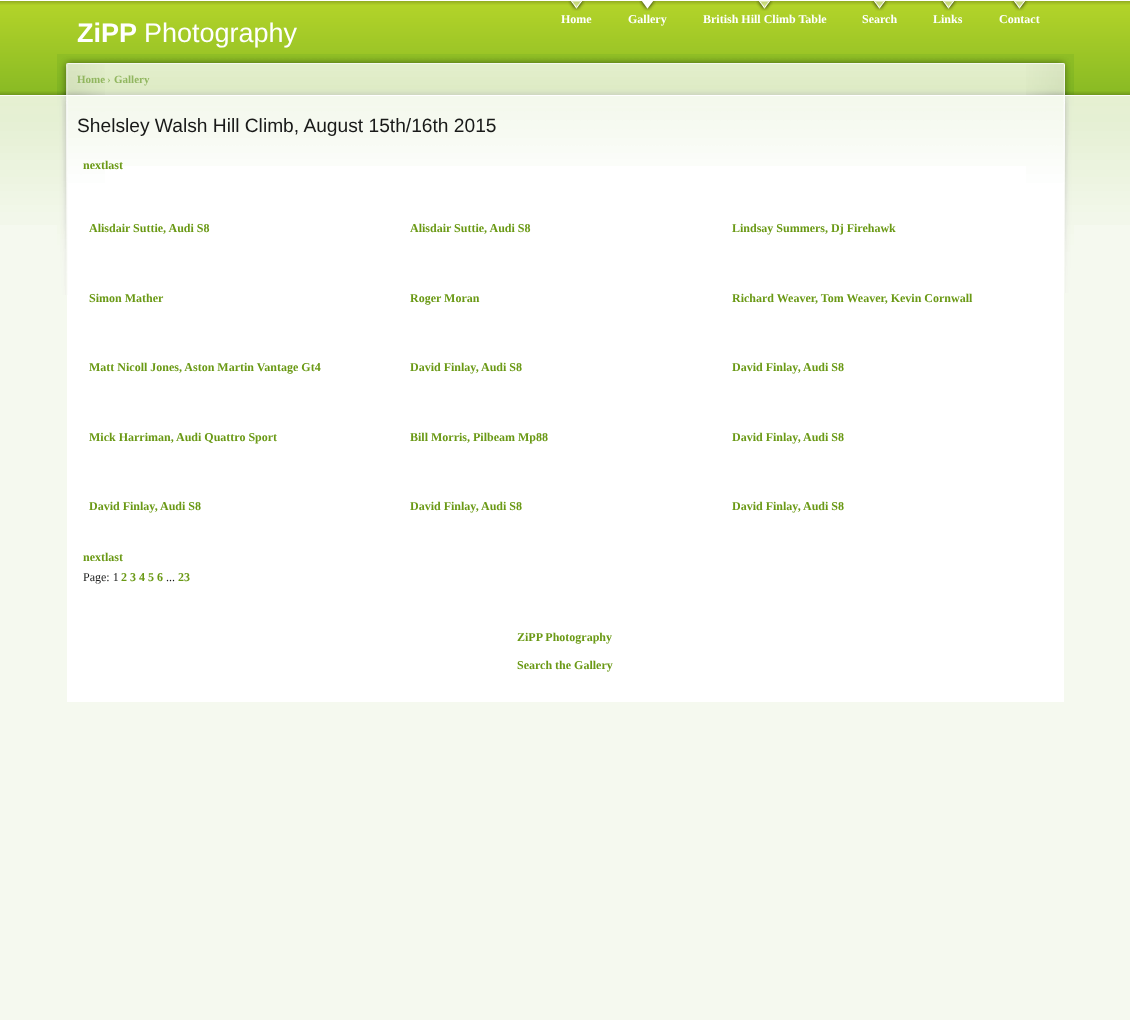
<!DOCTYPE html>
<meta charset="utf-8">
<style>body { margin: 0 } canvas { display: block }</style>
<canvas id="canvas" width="1130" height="1020"></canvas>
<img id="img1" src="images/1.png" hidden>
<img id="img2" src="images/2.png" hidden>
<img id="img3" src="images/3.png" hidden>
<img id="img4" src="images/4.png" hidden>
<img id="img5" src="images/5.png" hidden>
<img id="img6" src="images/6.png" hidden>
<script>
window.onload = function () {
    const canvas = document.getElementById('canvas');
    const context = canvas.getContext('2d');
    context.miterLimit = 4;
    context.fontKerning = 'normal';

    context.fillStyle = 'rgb(245, 249, 239)';
    context.fillRect(0, 0, 1130, 1020);
    context.drawImage(document.getElementById('img1'), 0, 0, 1130, 225);
    context.drawImage(document.getElementById('img2'), 568, 1, 17, 10);
    context.drawImage(document.getElementById('img3'), 639, 1, 17, 10);
    context.drawImage(document.getElementById('img2'), 756, 1, 17, 10);
    context.drawImage(document.getElementById('img2'), 871, 1, 17, 10);
    context.drawImage(document.getElementById('img2'), 940, 1, 17, 10);
    context.drawImage(document.getElementById('img2'), 1011, 1, 17, 10);
    context.fillStyle = 'rgb(255, 255, 255)';
    context.fillRect(67, 166, 997, 536);
    context.drawImage(document.getElementById('img4'), 105, 54, 921, 112);
    context.drawImage(document.getElementById('img5'), 1026, 54, 48, 239);
    context.drawImage(document.getElementById('img6'), 57, 54, 48, 241);
    context.font = 'bold 12px Liberation Serif';
    context.fillText('Home', 561, 23);
    context.fillText('Gallery', 628, 23);
    context.fillText('British Hill Climb Table', 703, 23);
    context.fillText('Search', 862, 23);
    context.fillText('Links', 933, 23);
    context.fillText('Contact', 999, 23);
    context.font = 'bold 27px Liberation Sans';
    context.fillText('ZiPP', 77, 42);
    context.font = '27px Liberation Sans';
    context.fillText('Photography', 144, 42);
    context.font = 'bold 11px Liberation Serif';
    context.fillStyle = 'rgb(145, 182, 95)';
    context.fillText('Home', 77, 83);
    context.font = '11px Liberation Serif';
    context.fillText('›', 107, 83);
    context.font = 'bold 11px Liberation Serif';
    context.fillText('Gallery', 114, 83);
    context.font = '19.2px Liberation Sans';
    context.fillStyle = 'rgb(25, 26, 25)';
    context.fillText('Shelsley Walsh Hill Climb, August 15th/16th 2015', 77, 132);
    context.font = 'bold 12px Liberation Serif';
    context.fillStyle = 'rgb(106, 153, 21)';
    context.fillText('nextlast', 83, 169);
    context.fillText('Alisdair Suttie, Audi S8', 89, 232);
    context.fillText('Alisdair Suttie, Audi S8', 410, 232);
    context.fillText('Lindsay Summers, Dj Firehawk', 732, 232);
    context.fillText('Simon Mather', 89, 302);
    context.fillText('Roger Moran', 410, 302);
    context.fillText('Richard Weaver, Tom Weaver, Kevin Cornwall', 732, 302);
    context.fillText('Matt Nicoll Jones, Aston Martin Vantage Gt4', 89, 371);
    context.fillText('David Finlay, Audi S8', 410, 371);
    context.fillText('David Finlay, Audi S8', 732, 371);
    context.fillText('Mick Harriman, Audi Quattro Sport', 89, 441);
    context.fillText('Bill Morris, Pilbeam Mp88', 410, 441);
    context.fillText('David Finlay, Audi S8', 732, 441);
    context.fillText('David Finlay, Audi S8', 89, 510);
    context.fillText('David Finlay, Audi S8', 410, 510);
    context.fillText('David Finlay, Audi S8', 732, 510);
    context.fillText('nextlast', 83, 561);
    context.font = '12px Liberation Serif';
    context.fillStyle = 'rgb(25, 26, 25)';
    context.fillText('Page: 1', 83, 581);
    context.font = 'bold 12px Liberation Serif';
    context.fillStyle = 'rgb(106, 153, 21)';
    context.fillText('2 3 4 5 6', 121, 581);
    context.font = '12px Liberation Serif';
    context.fillStyle = 'rgb(25, 26, 25)';
    context.fillText('...', 166, 581);
    context.font = 'bold 12px Liberation Serif';
    context.fillStyle = 'rgb(106, 153, 21)';
    context.fillText('23', 178, 581);
    context.fillText('ZiPP Photography', 517, 641);
    context.fillText('Search the Gallery', 517, 669);
};
</script>
